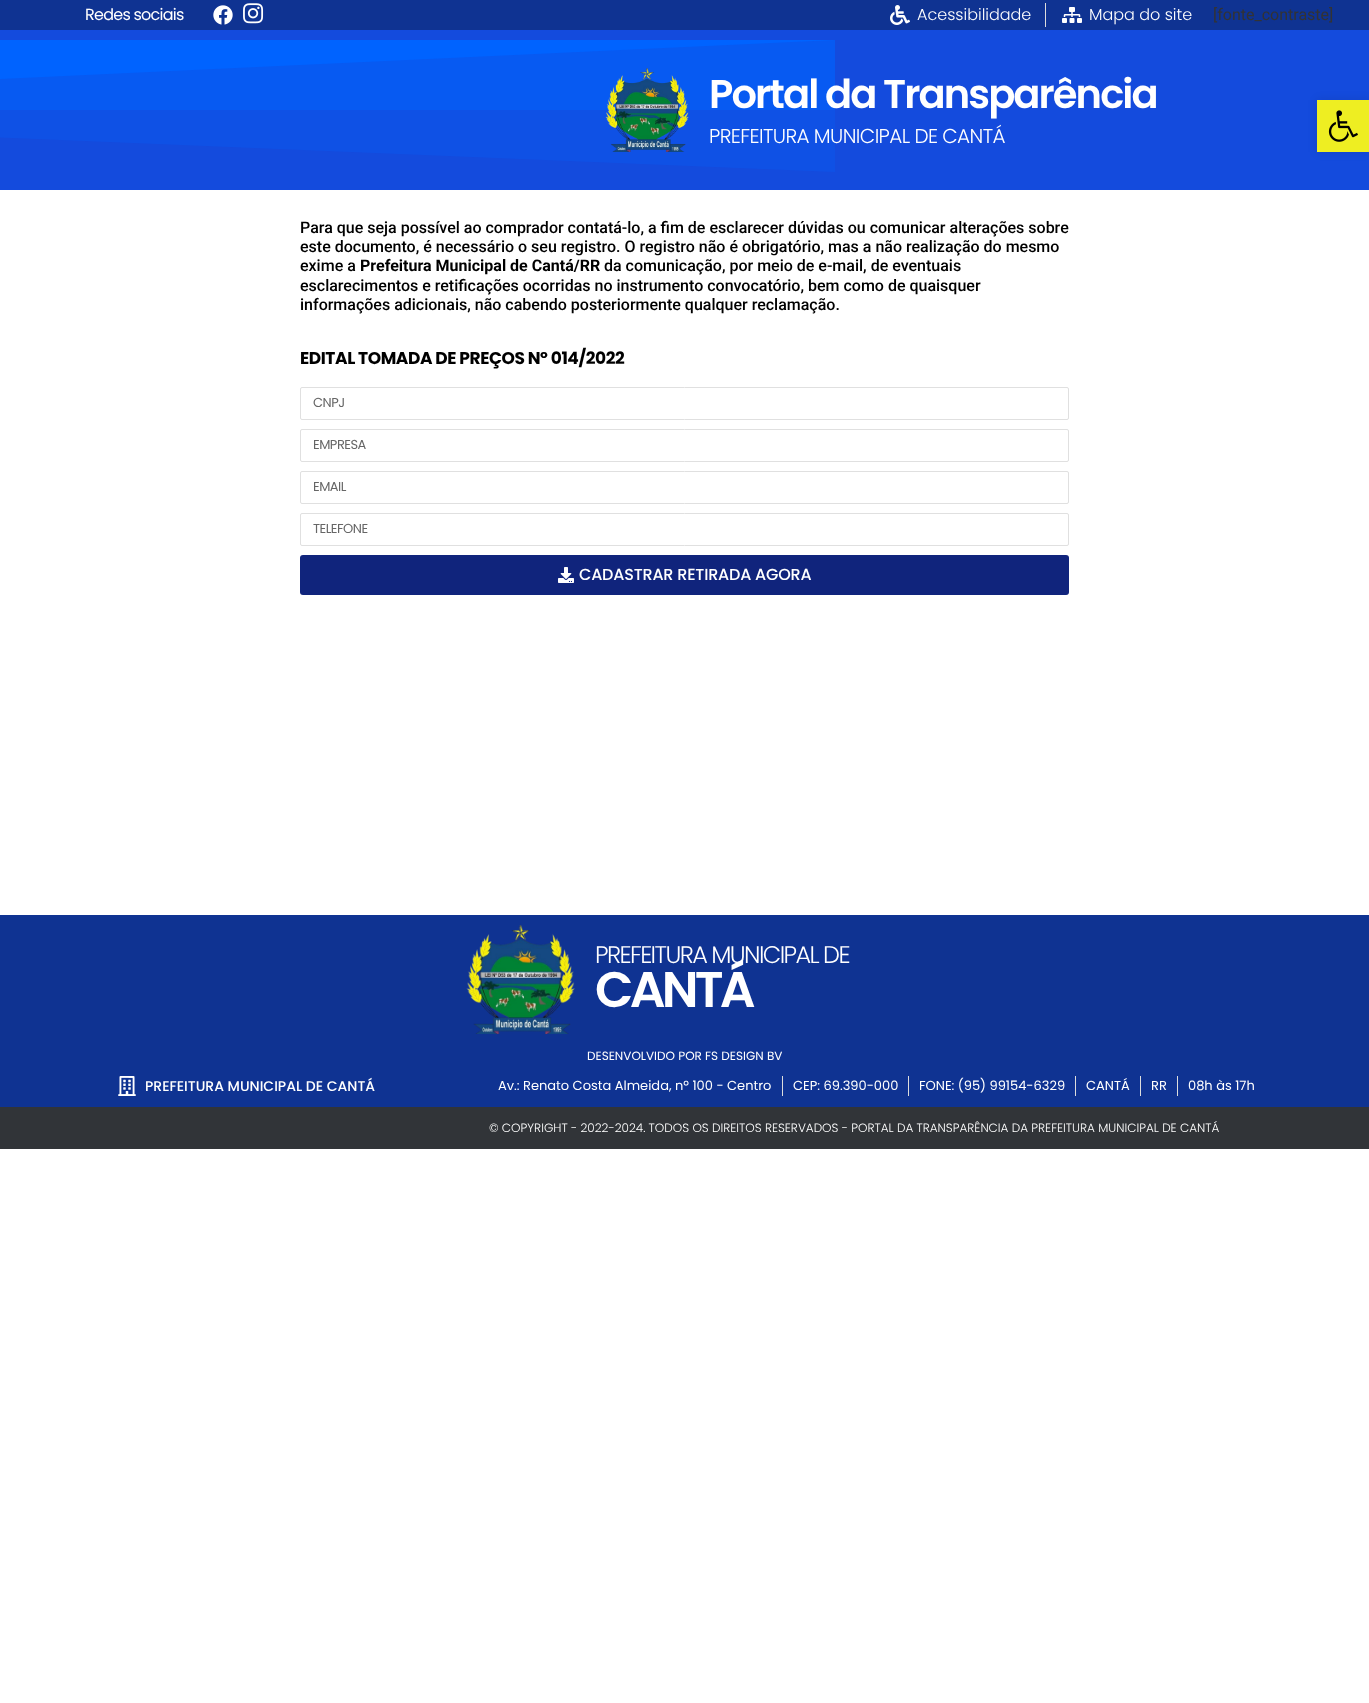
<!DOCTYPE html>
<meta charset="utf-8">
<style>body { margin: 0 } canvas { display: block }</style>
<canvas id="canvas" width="1369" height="1703"></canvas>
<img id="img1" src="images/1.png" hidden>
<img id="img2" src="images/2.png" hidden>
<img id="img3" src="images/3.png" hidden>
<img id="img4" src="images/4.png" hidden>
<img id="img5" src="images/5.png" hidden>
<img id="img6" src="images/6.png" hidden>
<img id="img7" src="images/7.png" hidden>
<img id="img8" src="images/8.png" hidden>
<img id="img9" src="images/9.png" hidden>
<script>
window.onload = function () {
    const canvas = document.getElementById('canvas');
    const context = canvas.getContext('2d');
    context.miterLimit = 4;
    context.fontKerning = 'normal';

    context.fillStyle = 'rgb(255, 255, 255)';
    context.fillRect(0, 0, 1369, 1703);
    context.fillStyle = 'rgb(15, 51, 146)';
    context.fillRect(0, 0, 1369, 30);
    context.drawImage(document.getElementById('img1'), 213, 5, 20, 20);
    context.drawImage(document.getElementById('img2'), 243, 3, 21, 21);
    context.drawImage(document.getElementById('img3'), 890, 5, 20, 20);
    context.fillStyle = 'rgb(221, 221, 221)';
    context.fillRect(1045, 3, 1, 24);
    context.drawImage(document.getElementById('img4'), 1062, 7, 20, 16);
    context.fillStyle = 'rgb(20, 75, 221)';
    context.fillRect(0, 30, 1369, 160);
    context.fillStyle = 'rgb(10, 87, 238)';
    context.fillRect(0, 40, 835, 70);
    context.fillStyle = 'rgb(0, 99, 255)';
    context.beginPath();
    context.moveTo(835, 40);
    context.lineTo(-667, 40);
    context.lineTo(-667, 110);
    context.closePath();
    context.fill();
    context.fillStyle = 'rgba(0, 99, 255, 0.25)';
    context.beginPath();
    context.moveTo(-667, 40);
    context.lineTo(835, 40);
    context.lineTo(835, 172);
    context.lineTo(-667, 110);
    context.closePath();
    context.fill();
    context.drawImage(document.getElementById('img5'), 605, 68, 84, 84);
    context.fillStyle = 'rgba(0, 0, 0, 0.1)';
    context.filter = 'blur(5px)';
    context.beginPath();
    context.rect(1317, 100, 52, 52);
    context.fill();
    context.filter = 'none';
    context.fillStyle = 'rgb(238, 238, 34)';
    context.fillRect(1317, 100, 52, 52);
    context.drawImage(document.getElementById('img6'), 1328, 110, 30, 32);
    context.beginPath();
    context.roundRect(300.5, 387.5, 768, 32, 1.5);
    context.strokeStyle = 'rgb(224, 224, 224)';
    context.stroke();
    context.beginPath();
    context.roundRect(300.5, 429.5, 768, 32, 1.5);
    context.stroke();
    context.beginPath();
    context.roundRect(300.5, 471.5, 768, 32, 1.5);
    context.stroke();
    context.beginPath();
    context.roundRect(300.5, 513.5, 768, 32, 1.5);
    context.stroke();
    context.fillStyle = 'rgb(16, 36, 124)';
    context.beginPath();
    context.roundRect(300, 555, 769, 40, 3);
    context.fill();
    context.drawImage(document.getElementById('img7'), 558, 567, 16, 16);
    context.fillStyle = 'rgb(15, 51, 146)';
    context.fillRect(0, 915, 1369, 192);
    context.drawImage(document.getElementById('img8'), 466, 925, 109, 109);
    context.drawImage(document.getElementById('img9'), 118, 1076, 18, 20);
    context.fillStyle = 'rgb(221, 221, 221)';
    context.fillRect(782, 1076, 1, 20);
    context.fillRect(908, 1076, 1, 20);
    context.fillRect(1075, 1076, 1, 20);
    context.fillRect(1140, 1076, 1, 20);
    context.fillRect(1177, 1076, 1, 20);
    context.fillStyle = 'rgb(49, 52, 56)';
    context.fillRect(0, 1107, 1369, 42);
    context.letterSpacing = '-0.75px';
    context.font = '16px Poppins';
    context.fillStyle = 'rgb(255, 255, 255)';
    context.fillText('Redes sociais', 85, 20);
    context.letterSpacing = '0px';
    context.font = '300 16px Poppins';
    context.fillText('Acessibilidade', 917, 20);
    context.fillText('Mapa do site', 1089, 20);
    context.font = '16px Roboto';
    context.fillStyle = 'rgb(51, 51, 51)';
    context.fillText('[fonte_contraste]', 1213, 20);
    context.letterSpacing = '-1.9px';
    context.font = '600 40px Poppins';
    context.fillStyle = 'rgb(255, 255, 255)';
    context.fillText('Portal da Transparência', 709, 108);
    context.letterSpacing = '-0.6px';
    context.font = '300 20px Poppins';
    context.fillText('PREFEITURA MUNICIPAL DE CANTÁ', 709, 143);
    context.letterSpacing = '0px';
    context.font = '500 16px Roboto';
    context.fillStyle = 'rgb(0, 0, 0)';
    context.fillText('Para que seja possível ao comprador contatá-lo, a fim de esclarecer dúvidas ou comunicar alterações sobre', 300, 233);
    context.fillText('este documento, é necessário o seu registro. O registro não é obrigatório, mas a não realização do mesmo', 300, 252);
    context.fillText('exime a', 300, 271);
    context.font = 'bold 16px Roboto';
    context.fillText('Prefeitura Municipal de Cantá/RR', 360, 271);
    context.font = '500 16px Roboto';
    context.fillText('da comunicação, por meio de e-mail, de eventuais', 604, 271);
    context.fillText('esclarecimentos e retificações ocorridas no instrumento convocatório, bem como de quaisquer', 300, 291);
    context.fillText('informações adicionais, não cabendo posteriormente qualquer reclamação.', 300, 310);
    context.letterSpacing = '-0.4px';
    context.font = 'bold 17px Poppins';
    context.fillText('EDITAL TOMADA DE PREÇOS Nº 014/2022', 300, 364);
    context.letterSpacing = '-0.5px';
    context.font = '13px Poppins';
    context.fillStyle = 'rgb(102, 102, 102)';
    context.fillText('CNPJ', 313, 407);
    context.fillText('EMPRESA', 313, 449);
    context.fillText('EMAIL', 313, 491);
    context.fillText('TELEFONE', 313, 533);
    context.letterSpacing = '-0.2px';
    context.font = '500 16px Poppins';
    context.fillStyle = 'rgb(255, 255, 255)';
    context.fillText('CADASTRAR RETIRADA AGORA', 579, 580);
    context.letterSpacing = '-1.6px';
    context.font = '300 24px Poppins';
    context.fillText('PREFEITURA MUNICIPAL DE', 595, 963);
    context.letterSpacing = '-3.75px';
    context.font = '600 50px Poppins';
    context.fillText('CANTÁ', 595, 1007);
    context.letterSpacing = '0px';
    context.font = '12px Poppins';
    context.fillText('DESENVOLVIDO POR FS DESIGN BV', 587, 1060);
    context.font = '500 14px Poppins';
    context.fillText('PREFEITURA MUNICIPAL DE CANTÁ', 145, 1091);
    context.font = '13px Poppins';
    context.fillText('Av.: Renato Costa Almeida, nº 100 - Centro', 498, 1090);
    context.fillText('CEP: 69.390-000', 793, 1090);
    context.fillText('FONE: (95) 99154-6329', 919, 1090);
    context.fillText('CANTÁ', 1086, 1090);
    context.fillText('RR', 1151, 1090);
    context.fillText('08h às 17h', 1188, 1090);
    context.font = '300 12px Poppins';
    context.fillText('© COPYRIGHT - 2022-2024. TODOS OS DIREITOS RESERVADOS - PORTAL DA TRANSPARÊNCIA DA PREFEITURA MUNICIPAL DE CANTÁ', 489, 1132);
};
</script>
